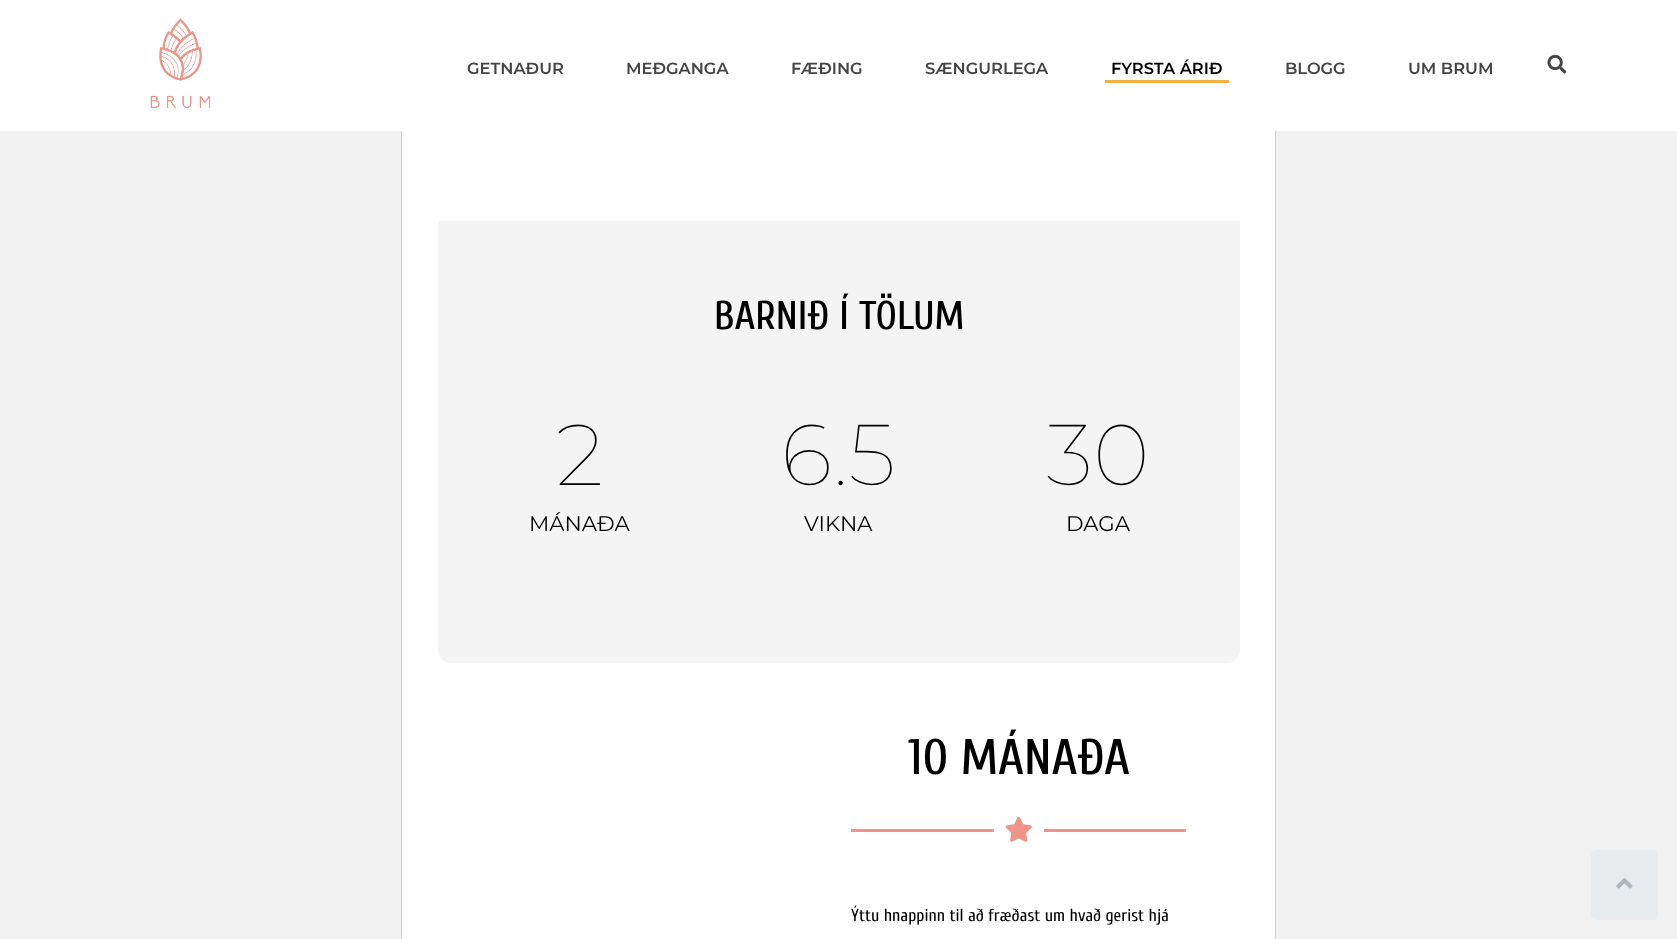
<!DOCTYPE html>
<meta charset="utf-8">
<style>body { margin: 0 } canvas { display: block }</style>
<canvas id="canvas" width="1677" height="939"></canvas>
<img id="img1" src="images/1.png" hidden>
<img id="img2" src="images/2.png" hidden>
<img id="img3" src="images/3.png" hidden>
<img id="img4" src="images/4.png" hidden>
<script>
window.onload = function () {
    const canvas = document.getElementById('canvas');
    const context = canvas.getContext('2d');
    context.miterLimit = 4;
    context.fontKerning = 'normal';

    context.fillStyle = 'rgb(241, 241, 241)';
    context.fillRect(0, 0, 1677, 939);
    context.fillStyle = 'rgb(255, 255, 255)';
    context.fillRect(402, 131, 873, 808);
    context.strokeStyle = 'rgb(204, 208, 212)';
    context.strokeRect(401.5, -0.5, 874, 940);
    context.fillRect(0, 0, 1677, 131);
    context.drawImage(document.getElementById('img1'), 150, 18, 61, 91);
    context.fillStyle = 'rgb(244, 177, 70)';
    context.fillRect(1105, 80, 124, 3);
    context.drawImage(document.getElementById('img2'), 1547, 54, 20, 20);
    context.fillStyle = 'rgb(244, 244, 244)';
    context.beginPath();
    context.roundRect(438, 221, 802, 442, [0, 0, 13, 13]);
    context.fill();
    context.fillStyle = 'rgb(237, 149, 137)';
    context.fillRect(851, 829, 143, 3);
    context.drawImage(document.getElementById('img3'), 1005, 816, 27, 26);
    context.fillRect(1044, 829, 142, 3);
    context.fillStyle = 'rgb(233, 236, 239)';
    context.beginPath();
    context.roundRect(1591, 850, 67, 70, 5);
    context.fill();
    context.drawImage(document.getElementById('img4'), 1616, 878, 17, 11);
    context.font = '600 16.25px Montserrat';
    context.fillStyle = 'rgb(68, 68, 68)';
    context.fillText('GETNAÐUR', 467, 74);
    context.fillText('MEÐGANGA', 626, 74);
    context.fillText('FÆÐING', 791, 74);
    context.fillText('SÆNGURLEGA', 925, 74);
    context.fillStyle = 'rgb(0, 0, 0)';
    context.fillText('FYRSTA ÁRIÐ', 1111, 74);
    context.fillStyle = 'rgb(68, 68, 68)';
    context.fillText('BLOGG', 1285, 74);
    context.fillText('UM BRUM', 1408, 74);
    context.font = '500 40px Cuprum';
    context.fillStyle = 'rgb(0, 0, 0)';
    context.fillText('BARNIÐ Í TÖLUM', 714, 329);
    context.font = '100 86px Montserrat';
    context.fillText('2', 556, 485);
    context.font = '21.25px Montserrat';
    context.fillText('MÁNAÐA', 529, 531);
    context.font = '100 86px Montserrat';
    context.fillText('6.5', 781, 485);
    context.font = '21.25px Montserrat';
    context.fillText('VIKNA', 804, 531);
    context.font = '100 86px Montserrat';
    context.fillText('30', 1046, 485);
    context.font = '21.25px Montserrat';
    context.fillText('DAGA', 1066, 531);
    context.font = '500 50px Cuprum';
    context.fillText('10 MÁNAÐA', 908, 774);
    context.font = '17.5px Cuprum';
    context.fillText('Ýttu hnappinn til að fræðast um hvað gerist hjá', 851, 921);
};
</script>
